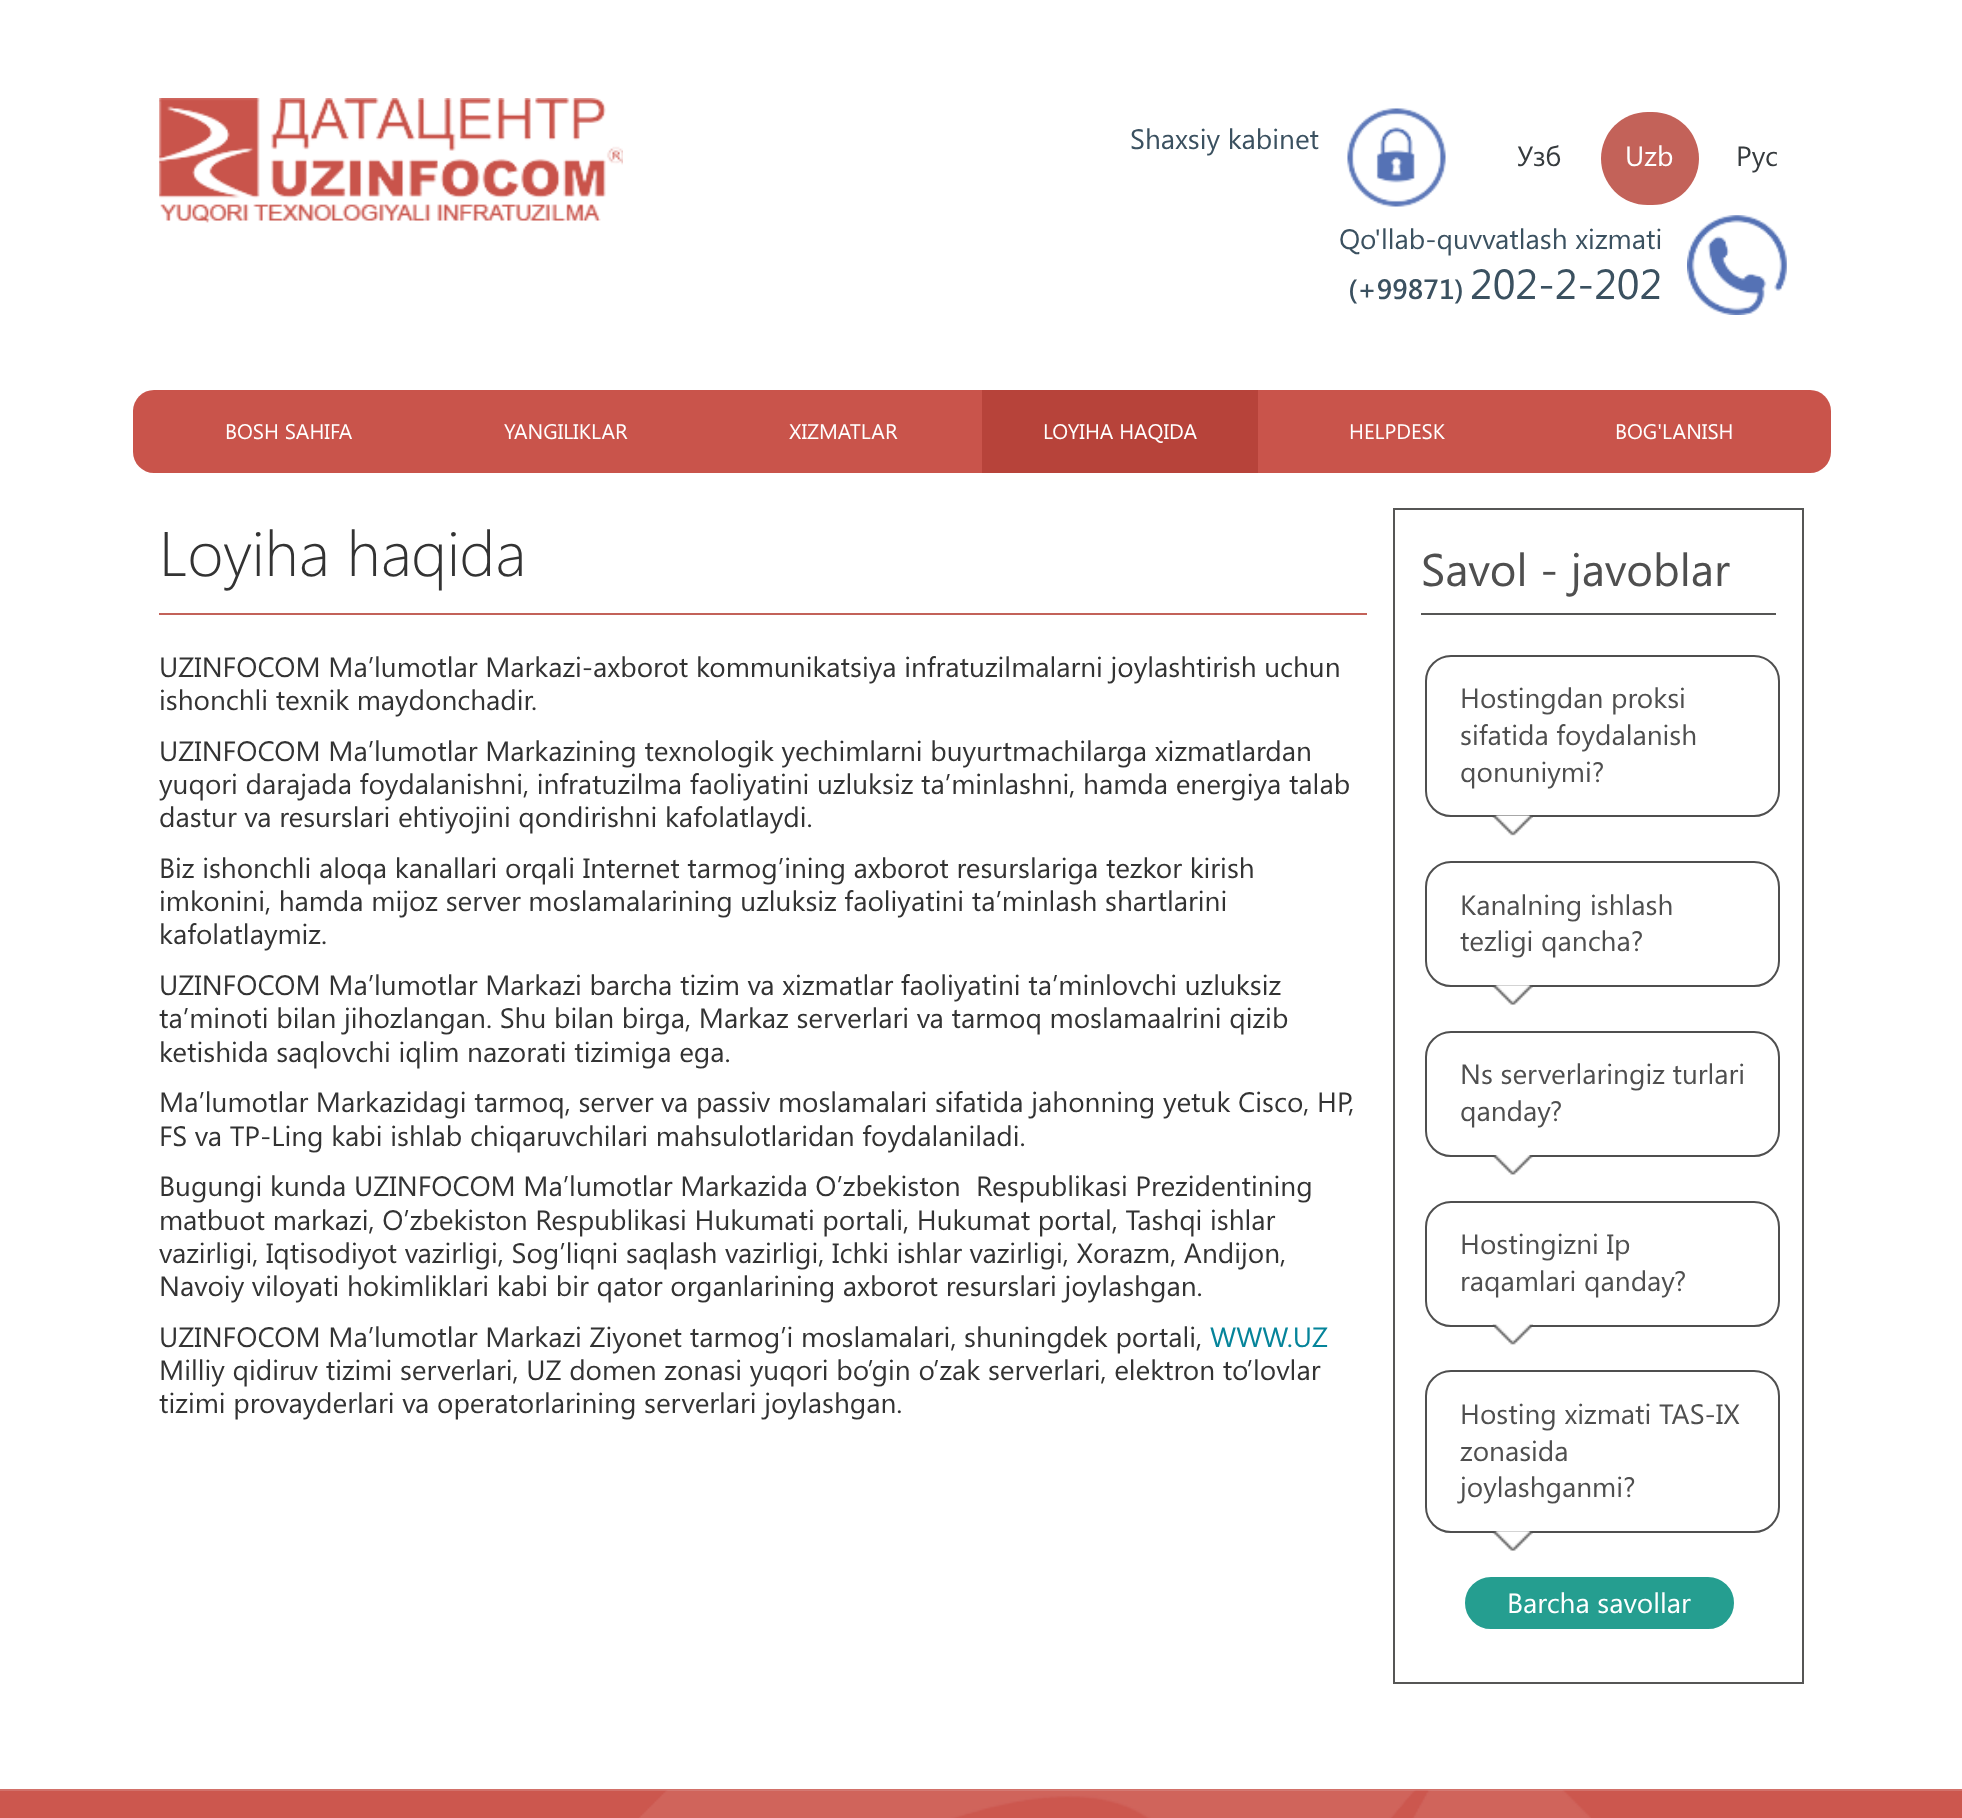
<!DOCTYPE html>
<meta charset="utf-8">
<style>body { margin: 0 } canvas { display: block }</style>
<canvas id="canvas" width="1962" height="1818"></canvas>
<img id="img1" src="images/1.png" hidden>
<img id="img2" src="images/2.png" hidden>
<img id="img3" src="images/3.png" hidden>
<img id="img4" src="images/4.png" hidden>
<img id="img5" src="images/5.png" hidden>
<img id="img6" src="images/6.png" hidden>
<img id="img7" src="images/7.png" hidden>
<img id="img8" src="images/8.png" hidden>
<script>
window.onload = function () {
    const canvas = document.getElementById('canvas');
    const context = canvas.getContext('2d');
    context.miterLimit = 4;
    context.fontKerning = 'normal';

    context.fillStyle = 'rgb(255, 255, 255)';
    context.fillRect(0, 0, 1962, 1818);
    context.drawImage(document.getElementById('img1'), 1347, 108, 99, 99);
    context.fillStyle = 'rgb(195, 98, 89)';
    context.beginPath();
    context.roundRect(1601, 112, 98, 93, 46.5);
    context.fill();
    context.drawImage(document.getElementById('img2'), 1687, 215, 100, 100);
    context.drawImage(document.getElementById('img3'), 159, 98, 464, 125);
    context.fillStyle = 'rgb(201, 84, 75)';
    context.beginPath();
    context.roundRect(133, 390, 1698, 83, 21);
    context.fill();
    context.fillStyle = 'rgb(183, 67, 58)';
    context.fillRect(982, 390, 276, 83);
    context.fillStyle = 'rgb(195, 98, 89)';
    context.fillRect(159, 613, 1208, 2);
    context.strokeStyle = 'rgb(86, 86, 85)';
    context.lineWidth = 2;
    context.strokeRect(1394, 509, 409, 1174);
    context.fillStyle = 'rgb(86, 86, 85)';
    context.fillRect(1421, 613, 355, 2);
    context.beginPath();
    context.roundRect(1426, 656, 353, 160, 25);
    context.strokeStyle = 'rgb(79, 79, 79)';
    context.stroke();
    context.drawImage(document.getElementById('img4'), 1492, 815, 41, 21);
    context.beginPath();
    context.roundRect(1426, 862, 353, 124, 25);
    context.stroke();
    context.drawImage(document.getElementById('img5'), 1492, 985, 41, 20);
    context.beginPath();
    context.roundRect(1426, 1032, 353, 124, 25);
    context.stroke();
    context.drawImage(document.getElementById('img6'), 1492, 1155, 41, 20);
    context.beginPath();
    context.roundRect(1426, 1202, 353, 124, 25);
    context.stroke();
    context.drawImage(document.getElementById('img7'), 1492, 1324, 41, 21);
    context.beginPath();
    context.roundRect(1426, 1371, 353, 161, 25);
    context.stroke();
    context.drawImage(document.getElementById('img5'), 1492, 1531, 41, 20);
    context.fillStyle = 'rgb(37, 158, 144)';
    context.beginPath();
    context.roundRect(1466, 1578, 267, 50, 25);
    context.fill();
    context.strokeStyle = 'rgb(37, 158, 144)';
    context.stroke();
    context.fillStyle = 'rgb(204, 87, 78)';
    context.fillRect(0, 1791, 1962, 27);
    context.fillStyle = 'rgb(210, 113, 106)';
    context.fillRect(0, 1789, 1962, 2);
    context.drawImage(document.getElementById('img8'), 639, 1790, 952, 28);
    context.font = '28px Segoe UI';
    context.fillStyle = 'rgb(59, 81, 96)';
    context.fillText('Shaxsiy kabinet', 1130, 149);
    context.fillStyle = 'rgb(54, 59, 62)';
    context.fillText('Узб', 1517, 166);
    context.fillStyle = 'rgb(255, 255, 255)';
    context.fillText('Uzb', 1625, 166);
    context.fillStyle = 'rgb(54, 59, 62)';
    context.fillText('Рус', 1736, 166);
    context.fillStyle = 'rgb(59, 81, 96)';
    context.fillText('Qo\'llab-quvvatlash xizmati', 1339, 249);
    context.font = '600 28px Segoe UI';
    context.fillText('(+99871)', 1348, 299);
    context.font = '42px Segoe UI';
    context.fillText('202-2-202', 1470, 299);
    context.font = '21px Segoe UI';
    context.fillStyle = 'rgb(255, 255, 255)';
    context.fillText('BOSH SAHIFA', 225, 439);
    context.fillText('YANGILIKLAR', 504, 439);
    context.fillText('XIZMATLAR', 789, 439);
    context.fillText('LOYIHA HAQIDA', 1043, 439);
    context.fillText('HELPDESK', 1349, 439);
    context.fillText('BOG\'LANISH', 1615, 439);
    context.font = '300 63px Segoe UI';
    context.fillStyle = 'rgb(51, 51, 51)';
    context.fillText('Loyiha haqida', 159, 576);
    context.font = '28px Segoe UI';
    context.fillText('UZINFOCOM Ma’lumotlar Markazi-axborot kommunikatsiya infratuzilmalarni joylashtirish uchun', 159, 677);
    context.fillText('ishonchli texnik maydonchadir.', 159, 710);
    context.fillText('UZINFOCOM Ma’lumotlar Markazining texnologik yechimlarni buyurtmachilarga xizmatlardan', 159, 761);
    context.fillText('yuqori darajada foydalanishni, infratuzilma faoliyatini uzluksiz ta’minlashni, hamda energiya talab', 159, 794);
    context.fillText('dastur va resurslari ehtiyojini qondirishni kafolatlaydi.', 159, 827);
    context.fillText('Biz ishonchli aloqa kanallari orqali Internet tarmog’ining axborot resurslariga tezkor kirish', 159, 878);
    context.fillText('imkonini, hamda mijoz server moslamalarining uzluksiz faoliyatini ta’minlash shartlarini', 159, 911);
    context.fillText('kafolatlaymiz.', 159, 944);
    context.fillText('UZINFOCOM Ma’lumotlar Markazi barcha tizim va xizmatlar faoliyatini ta’minlovchi uzluksiz', 159, 995);
    context.fillText('ta’minoti bilan jihozlangan. Shu bilan birga, Markaz serverlari va tarmoq moslamaalrini qizib', 159, 1028);
    context.fillText('ketishida saqlovchi iqlim nazorati tizimiga ega.', 159, 1062);
    context.fillText('Ma’lumotlar Markazidagi tarmoq, server va passiv moslamalari sifatida jahonning yetuk Cisco, HP,', 159, 1112);
    context.fillText('FS va TP-Ling kabi ishlab chiqaruvchilari mahsulotlaridan foydalaniladi.', 159, 1146);
    context.fillText('Bugungi kunda UZINFOCOM Ma’lumotlar Markazida O’zbekiston  Respublikasi Prezidentining', 159, 1196);
    context.fillText('matbuot markazi, O’zbekiston Respublikasi Hukumati portali, Hukumat portal, Tashqi ishlar', 159, 1230);
    context.fillText('vazirligi, Iqtisodiyot vazirligi, Sog’liqni saqlash vazirligi, Ichki ishlar vazirligi, Xorazm, Andijon,', 159, 1263);
    context.fillText('Navoiy viloyati hokimliklari kabi bir qator organlarining axborot resurslari joylashgan.', 159, 1296);
    context.fillText('UZINFOCOM Ma’lumotlar Markazi Ziyonet tarmog’i moslamalari, shuningdek portali,', 159, 1347);
    context.fillStyle = 'rgb(5, 132, 154)';
    context.fillText('WWW.UZ', 1210, 1347);
    context.fillStyle = 'rgb(51, 51, 51)';
    context.fillText('Milliy qidiruv tizimi serverlari, UZ domen zonasi yuqori bo’gin o’zak serverlari, elektron to’lovlar', 159, 1380);
    context.fillText('tizimi provayderlari va operatorlarining serverlari joylashgan.', 159, 1413);
    context.font = '45.5px Segoe UI';
    context.fillStyle = 'rgb(79, 79, 79)';
    context.fillText('Savol - javoblar', 1421, 586);
    context.font = '28px Segoe UI';
    context.fillText('Hostingdan proksi', 1460, 708);
    context.fillText('sifatida foydalanish', 1460, 745);
    context.fillText('qonuniymi?', 1460, 782);
    context.fillText('Kanalning ishlash', 1460, 915);
    context.fillText('tezligi qancha?', 1460, 951);
    context.fillText('Ns serverlaringiz turlari', 1460, 1084);
    context.fillText('qanday?', 1460, 1121);
    context.fillText('Hostingizni Ip', 1460, 1254);
    context.fillText('raqamlari qanday?', 1460, 1291);
    context.fillText('Hosting xizmati TAS-IX', 1460, 1424);
    context.fillText('zonasida', 1460, 1461);
    context.fillText('joylashganmi?', 1460, 1497);
    context.fillStyle = 'rgb(255, 255, 255)';
    context.fillText('Barcha savollar', 1507, 1613);
};
</script>
